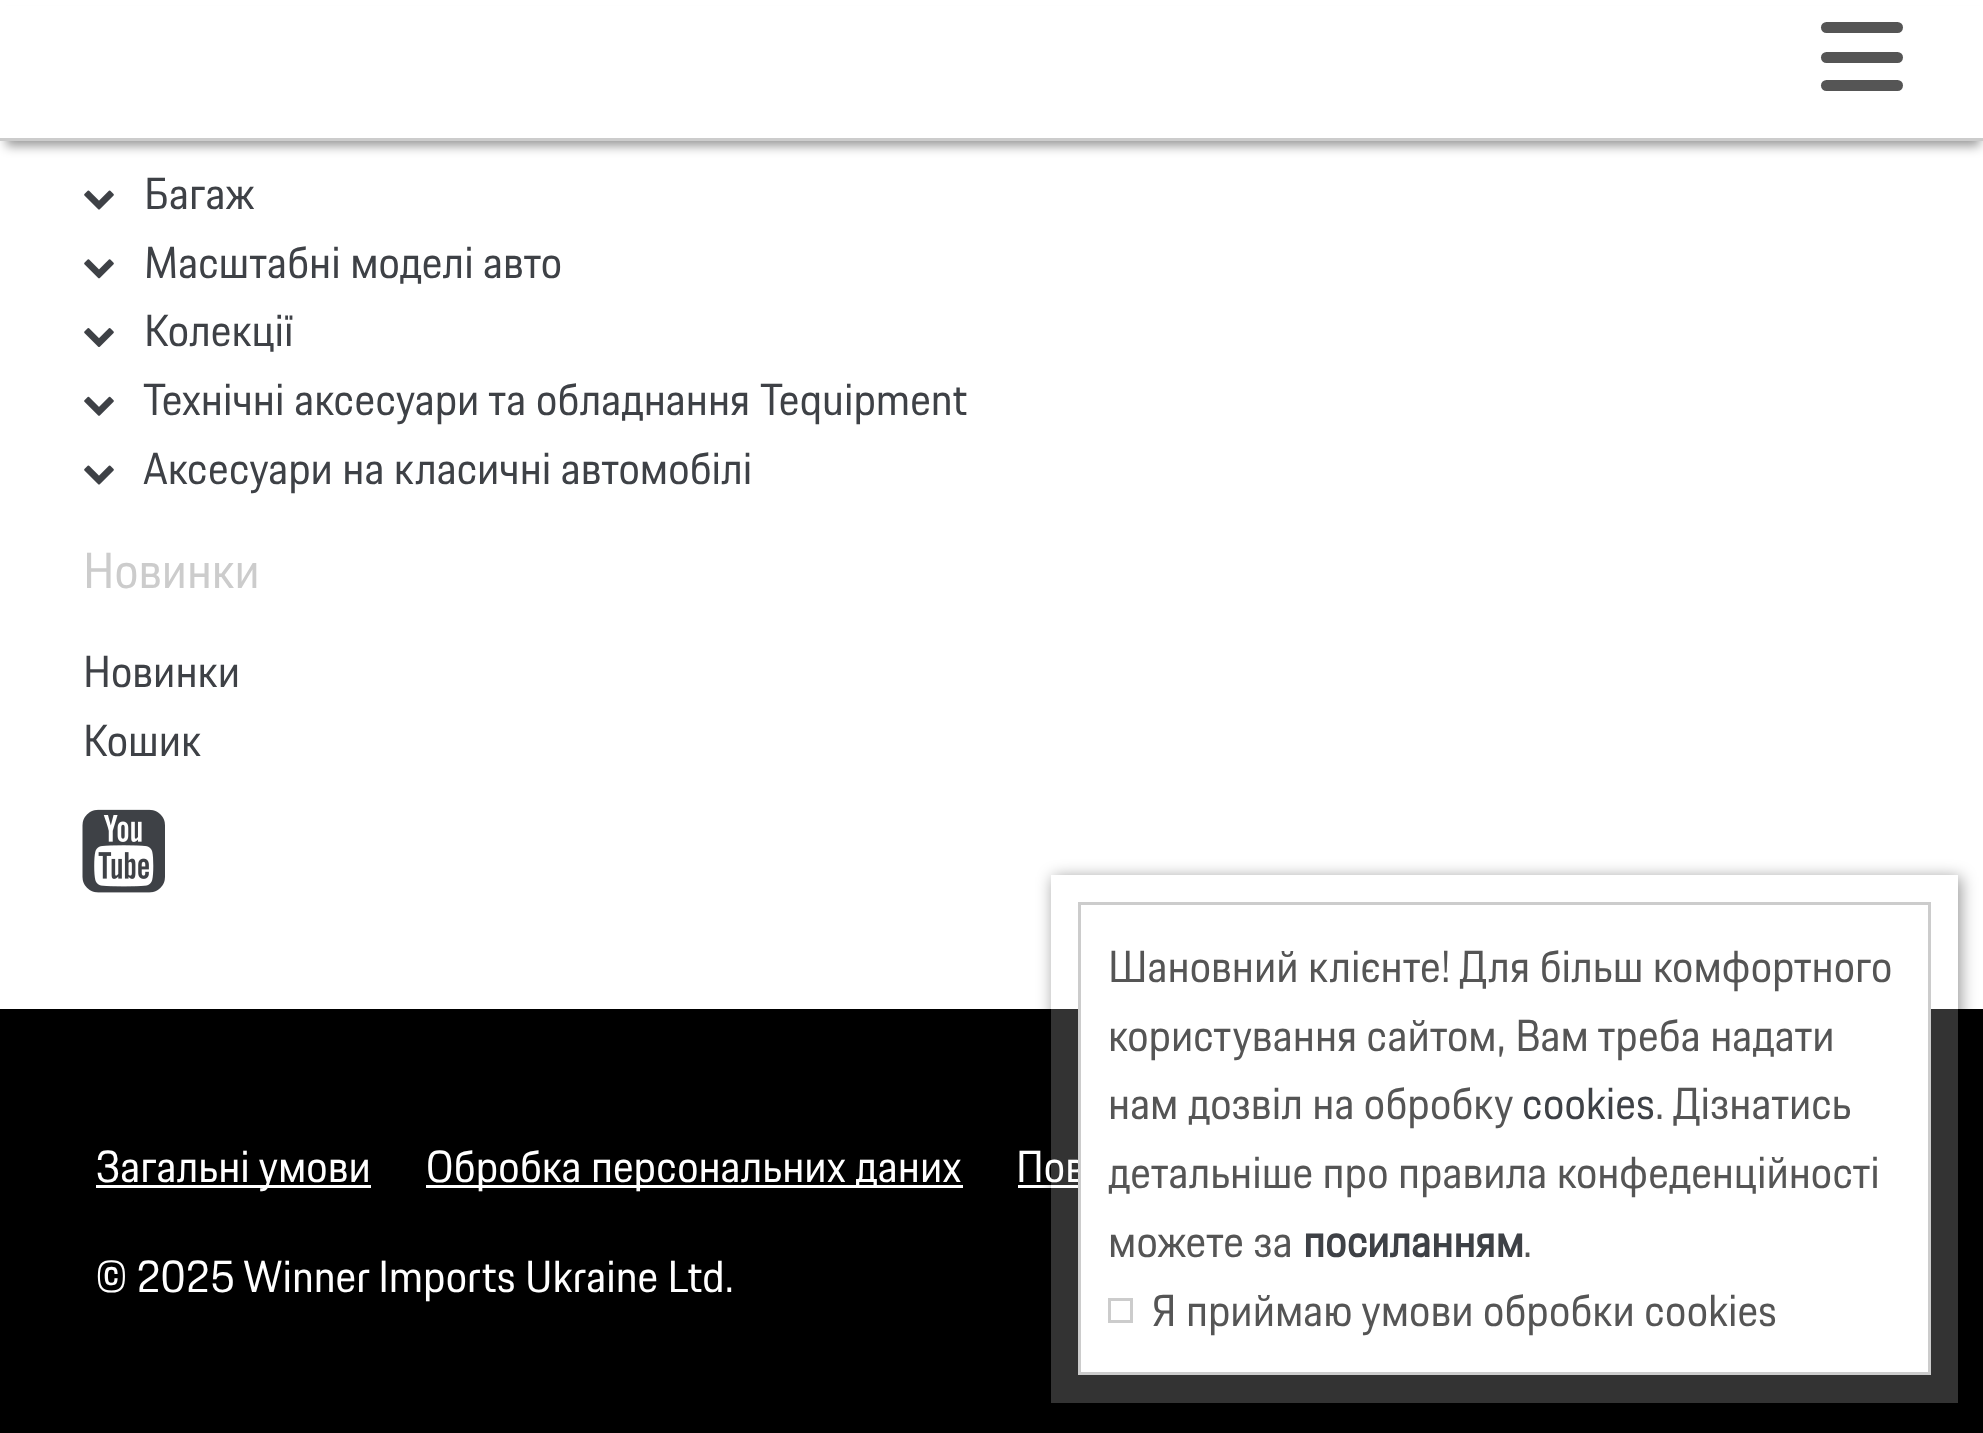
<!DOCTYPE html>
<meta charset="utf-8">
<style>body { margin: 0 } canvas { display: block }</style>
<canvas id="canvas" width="1983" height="1433"></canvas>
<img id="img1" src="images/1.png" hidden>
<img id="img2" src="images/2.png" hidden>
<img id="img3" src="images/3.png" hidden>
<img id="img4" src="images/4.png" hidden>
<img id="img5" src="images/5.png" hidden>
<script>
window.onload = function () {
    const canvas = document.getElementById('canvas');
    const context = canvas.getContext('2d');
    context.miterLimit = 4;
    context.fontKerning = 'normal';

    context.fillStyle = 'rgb(255, 255, 255)';
    context.fillRect(0, 0, 1983, 1433);
    context.fillStyle = 'rgba(0, 0, 0, 0.4)';
    context.filter = 'blur(5.5px)';
    context.beginPath();
    context.rect(6, 17, 1974, 129);
    context.fill();
    context.filter = 'none';
    context.fillStyle = 'rgb(255, 255, 255)';
    context.fillRect(0, 6, 1983, 132);
    context.fillStyle = 'rgb(85, 85, 85)';
    context.beginPath();
    context.roundRect(1821, 22, 82, 11, 5.5);
    context.fill();
    context.beginPath();
    context.roundRect(1821, 52, 82, 11, 5.5);
    context.fill();
    context.beginPath();
    context.roundRect(1821, 80, 82, 11, 5.5);
    context.fill();
    context.fillStyle = 'rgb(204, 204, 204)';
    context.fillRect(0, 138, 1983, 3);
    context.drawImage(document.getElementById('img1'), 84, 190, 30, 20);
    context.drawImage(document.getElementById('img2'), 84, 259, 30, 20);
    context.drawImage(document.getElementById('img3'), 84, 328, 30, 19);
    context.drawImage(document.getElementById('img4'), 84, 396, 30, 20);
    context.drawImage(document.getElementById('img1'), 84, 465, 30, 20);
    context.drawImage(document.getElementById('img5'), 82, 809, 83, 84);
    context.fillStyle = 'rgb(0, 0, 0)';
    context.fillRect(0, 1009, 1983, 424);
    context.fillStyle = 'rgb(255, 255, 255)';
    context.fillRect(96, 1185, 275, 3);
    context.fillRect(426, 1185, 537, 3);
    context.fillRect(1018, 1185, 60, 3);
    context.save();
    context.beginPath();
    context.moveTo(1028, 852);
    context.lineTo(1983, 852);
    context.lineTo(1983, 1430);
    context.lineTo(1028, 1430);
    context.closePath();
    context.moveTo(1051, 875);
    context.lineTo(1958, 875);
    context.lineTo(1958, 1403);
    context.lineTo(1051, 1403);
    context.closePath();
    context.clip('evenodd');
    context.fillStyle = 'rgba(0, 0, 0, 0.4)';
    context.filter = 'blur(8px)';
    context.beginPath();
    context.rect(1053, 877, 908, 528);
    context.fill();
    context.filter = 'none';
    context.restore();
    context.font = '44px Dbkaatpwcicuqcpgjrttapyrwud';
    context.fillStyle = 'rgb(62, 65, 70)';
    context.fillText('Багаж', 144, 209);
    context.fillText('Масштабні моделі авто', 144, 278);
    context.fillText('Колекції', 144, 346);
    context.wordSpacing = '0.5px';
    context.fillText('Технічні аксесуари та обладнання Tequipment', 143, 415);
    context.wordSpacing = '0px';
    context.fillText('Аксесуари на класичні автомобілі', 143, 484);
    context.font = '49.5px Dbkaatpwcicuqcpgjrttapyrwud';
    context.fillStyle = 'rgb(204, 204, 204)';
    context.fillText('Новинки', 83, 588);
    context.font = '44px Dbkaatpwcicuqcpgjrttapyrwud';
    context.fillStyle = 'rgb(62, 65, 70)';
    context.fillText('Новинки', 83, 687);
    context.fillText('Кошик', 83, 756);
    context.fillStyle = 'rgb(255, 255, 255)';
    context.fillText('Загальні умови', 96, 1182);
    context.fillText('Обробка персональних даних', 426, 1182);
    context.fillText('Пов', 1016, 1182);
    context.fillText('© 2025 Winner Imports Ukraine Ltd.', 96, 1292);
    context.fillStyle = 'rgba(255, 255, 255, 0.2)';
    context.fillRect(1051, 1009, 907, 394);
    context.fillStyle = 'rgb(255, 255, 255)';
    context.fillRect(1081, 1009, 847, 363);
    context.strokeStyle = 'rgb(204, 204, 204)';
    context.lineWidth = 3;
    context.strokeRect(1079.5, 903.5, 850, 470);
    context.fillStyle = 'rgb(85, 85, 85)';
    context.fillText('Шановний клієнте! Для більш комфортного', 1108, 982);
    context.fillText('користування сайтом, Вам треба надати', 1108, 1051);
    context.fillText('нам дозвіл на обробку', 1108, 1119);
    context.fillStyle = 'rgb(62, 65, 70)';
    context.fillText('cookies', 1522, 1119);
    context.fillStyle = 'rgb(85, 85, 85)';
    context.fillText('. Дізнатись', 1655, 1119);
    context.fillText('детальніше про правила конфеденційності', 1108, 1188);
    context.fillText('можете за', 1108, 1257);
    context.font = 'bold 44px Dbkaatpwcicuqcpgjrttapyrwud';
    context.fillStyle = 'rgb(62, 65, 70)';
    context.fillText('посиланням', 1303, 1257);
    context.font = '44px Dbkaatpwcicuqcpgjrttapyrwud';
    context.fillStyle = 'rgb(85, 85, 85)';
    context.fillText('.', 1523, 1257);
    context.strokeRect(1109.5, 1299.5, 22, 22);
    context.fillText('Я приймаю умови обробки cookies', 1152, 1326);
};
</script>
